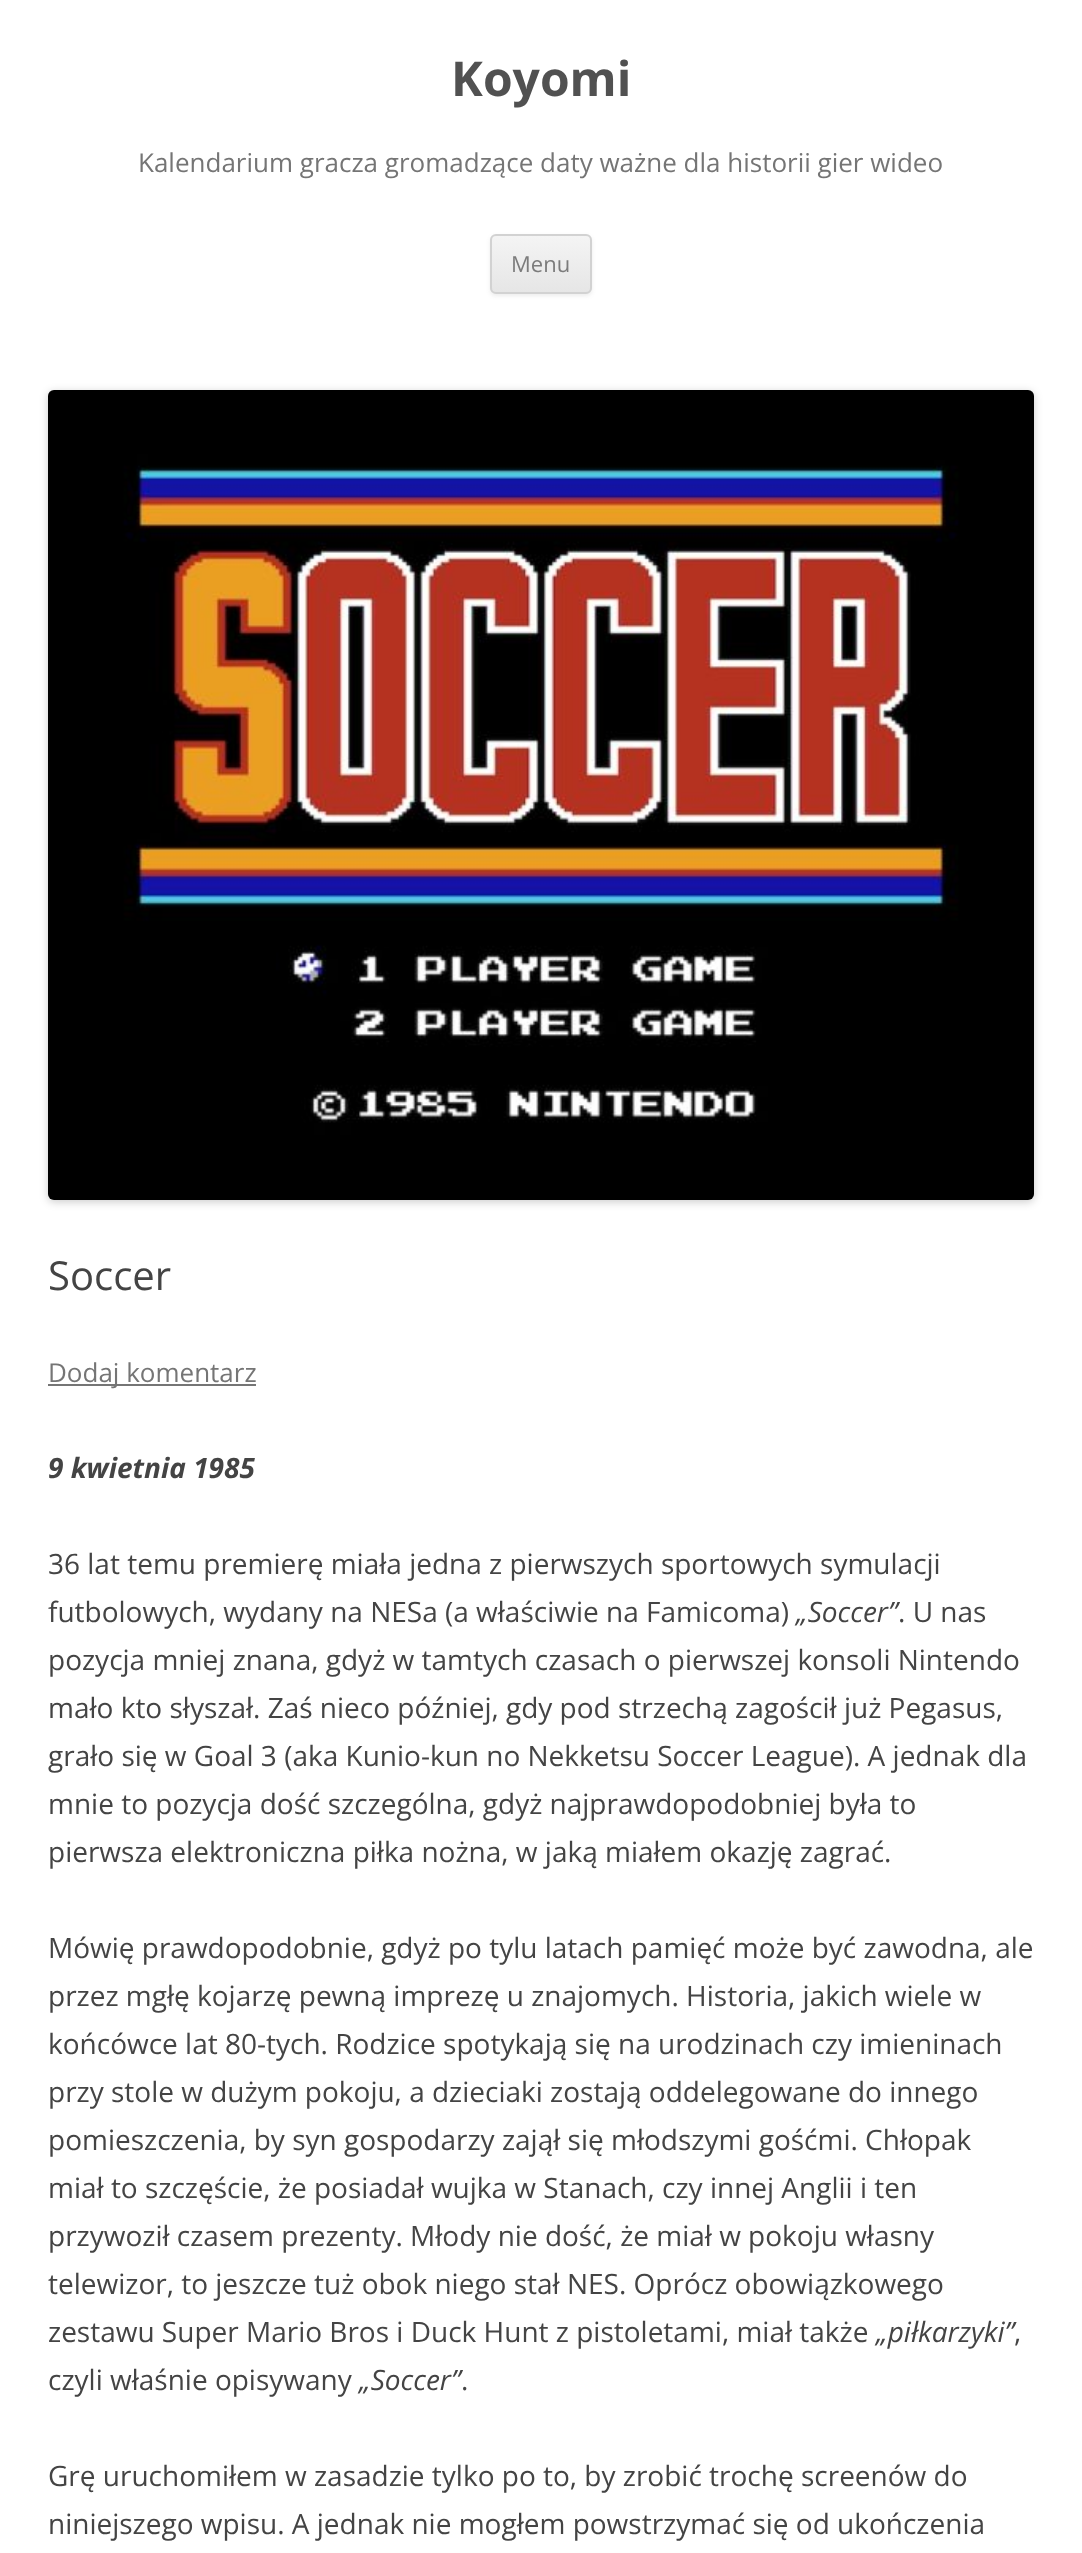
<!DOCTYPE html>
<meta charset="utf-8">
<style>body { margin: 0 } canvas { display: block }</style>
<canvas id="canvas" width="1082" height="2553"></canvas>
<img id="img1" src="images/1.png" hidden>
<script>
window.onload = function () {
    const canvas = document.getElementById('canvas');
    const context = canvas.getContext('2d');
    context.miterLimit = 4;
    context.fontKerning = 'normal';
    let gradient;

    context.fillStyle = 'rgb(255, 255, 255)';
    context.fillRect(0, 0, 1082, 2553);
    context.fillStyle = 'rgba(64, 64, 64, 0.1)';
    context.filter = 'blur(2px)';
    context.beginPath();
    context.roundRect(490, 236, 102, 60, 6);
    context.fill();
    context.filter = 'none';
    context.save();
    context.beginPath();
    context.roundRect(490, 234, 102, 60, 6);
    context.clip();
    gradient = context.createLinearGradient(541, 236, 541, 292);
    gradient.addColorStop(0, 'rgb(244, 244, 244)');
    gradient.addColorStop(1, 'rgb(230, 230, 230)');
    context.fillStyle = gradient;
    context.fillRect(490, 236, 102, 56);
    context.restore();
    context.beginPath();
    context.roundRect(491, 235, 100, 58, 5);
    context.strokeStyle = 'rgb(210, 210, 210)';
    context.lineWidth = 2;
    context.stroke();
    context.fillStyle = 'rgba(0, 0, 0, 0.2)';
    context.filter = 'blur(4px)';
    context.beginPath();
    context.roundRect(48, 392, 986, 810, 6);
    context.fill();
    context.filter = 'none';
    context.drawImage(document.getElementById('img1'), 48, 390, 986, 810);
    context.fillStyle = 'rgb(117, 117, 117)';
    context.fillRect(48, 1384, 208, 2);
    context.font = 'bold 48px Open Sans';
    context.fillStyle = 'rgb(81, 81, 81)';
    context.fillText('Koyomi', 451, 96);
    context.font = '26px Open Sans';
    context.fillStyle = 'rgb(117, 117, 117)';
    context.fillText('Kalendarium gracza gromadzące daty ważne dla historii gier wideo', 138, 172);
    context.font = '22px Open Sans';
    context.fillStyle = 'rgb(124, 124, 124)';
    context.fillText('Menu', 511, 272);
    context.font = '40px Open Sans';
    context.fillStyle = 'rgb(68, 68, 68)';
    context.fillText('Soccer', 48, 1290);
    context.font = '26px Open Sans';
    context.fillStyle = 'rgb(117, 117, 117)';
    context.fillText('Dodaj komentarz', 48, 1382);
    context.font = 'italic bold 28px Open Sans';
    context.fillStyle = 'rgb(68, 68, 68)';
    context.fillText('9 kwietnia 1985', 48, 1478);
    context.font = '28px Open Sans';
    context.fillText('36 lat temu premierę miała jedna z pierwszych sportowych symulacji', 48, 1574);
    context.fillText('futbolowych, wydany na NESa (a właściwie na Famicoma)', 48, 1622);
    context.font = 'italic 28px Open Sans';
    context.fillText('„Soccer”', 796, 1622);
    context.font = '28px Open Sans';
    context.fillText('. U nas', 898, 1622);
    context.fillText('pozycja mniej znana, gdyż w tamtych czasach o pierwszej konsoli Nintendo', 48, 1670);
    context.fillText('mało kto słyszał. Zaś nieco później, gdy pod strzechą zagościł już Pegasus,', 48, 1718);
    context.fillText('grało się w Goal 3 (aka Kunio-kun no Nekketsu Soccer League). A jednak dla', 48, 1766);
    context.fillText('mnie to pozycja dość szczególna, gdyż najprawdopodobniej była to', 48, 1814);
    context.fillText('pierwsza elektroniczna piłka nożna, w jaką miałem okazję zagrać.', 48, 1862);
    context.fillText('Mówię prawdopodobnie, gdyż po tylu latach pamięć może być zawodna, ale', 48, 1958);
    context.fillText('przez mgłę kojarzę pewną imprezę u znajomych. Historia, jakich wiele w', 48, 2006);
    context.fillText('końcówce lat 80-tych. Rodzice spotykają się na urodzinach czy imieninach', 48, 2054);
    context.fillText('przy stole w dużym pokoju, a dzieciaki zostają oddelegowane do innego', 48, 2102);
    context.fillText('pomieszczenia, by syn gospodarzy zajął się młodszymi gośćmi. Chłopak', 48, 2150);
    context.fillText('miał to szczęście, że posiadał wujka w Stanach, czy innej Anglii i ten', 48, 2198);
    context.fillText('przywoził czasem prezenty. Młody nie dość, że miał w pokoju własny', 48, 2246);
    context.fillText('telewizor, to jeszcze tuż obok niego stał NES. Oprócz obowiązkowego', 48, 2294);
    context.fillText('zestawu Super Mario Bros i Duck Hunt z pistoletami, miał także', 48, 2342);
    context.font = 'italic 28px Open Sans';
    context.fillText('„piłkarzyki”', 876, 2342);
    context.font = '28px Open Sans';
    context.fillText(',', 1014, 2342);
    context.fillText('czyli właśnie opisywany', 48, 2390);
    context.font = 'italic 28px Open Sans';
    context.fillText('„Soccer”', 359, 2390);
    context.font = '28px Open Sans';
    context.fillText('.', 461, 2390);
    context.fillText('Grę uruchomiłem w zasadzie tylko po to, by zrobić trochę screenów do', 48, 2486);
    context.fillText('niniejszego wpisu. A jednak nie mogłem powstrzymać się od ukończenia', 48, 2534);
};
</script>
